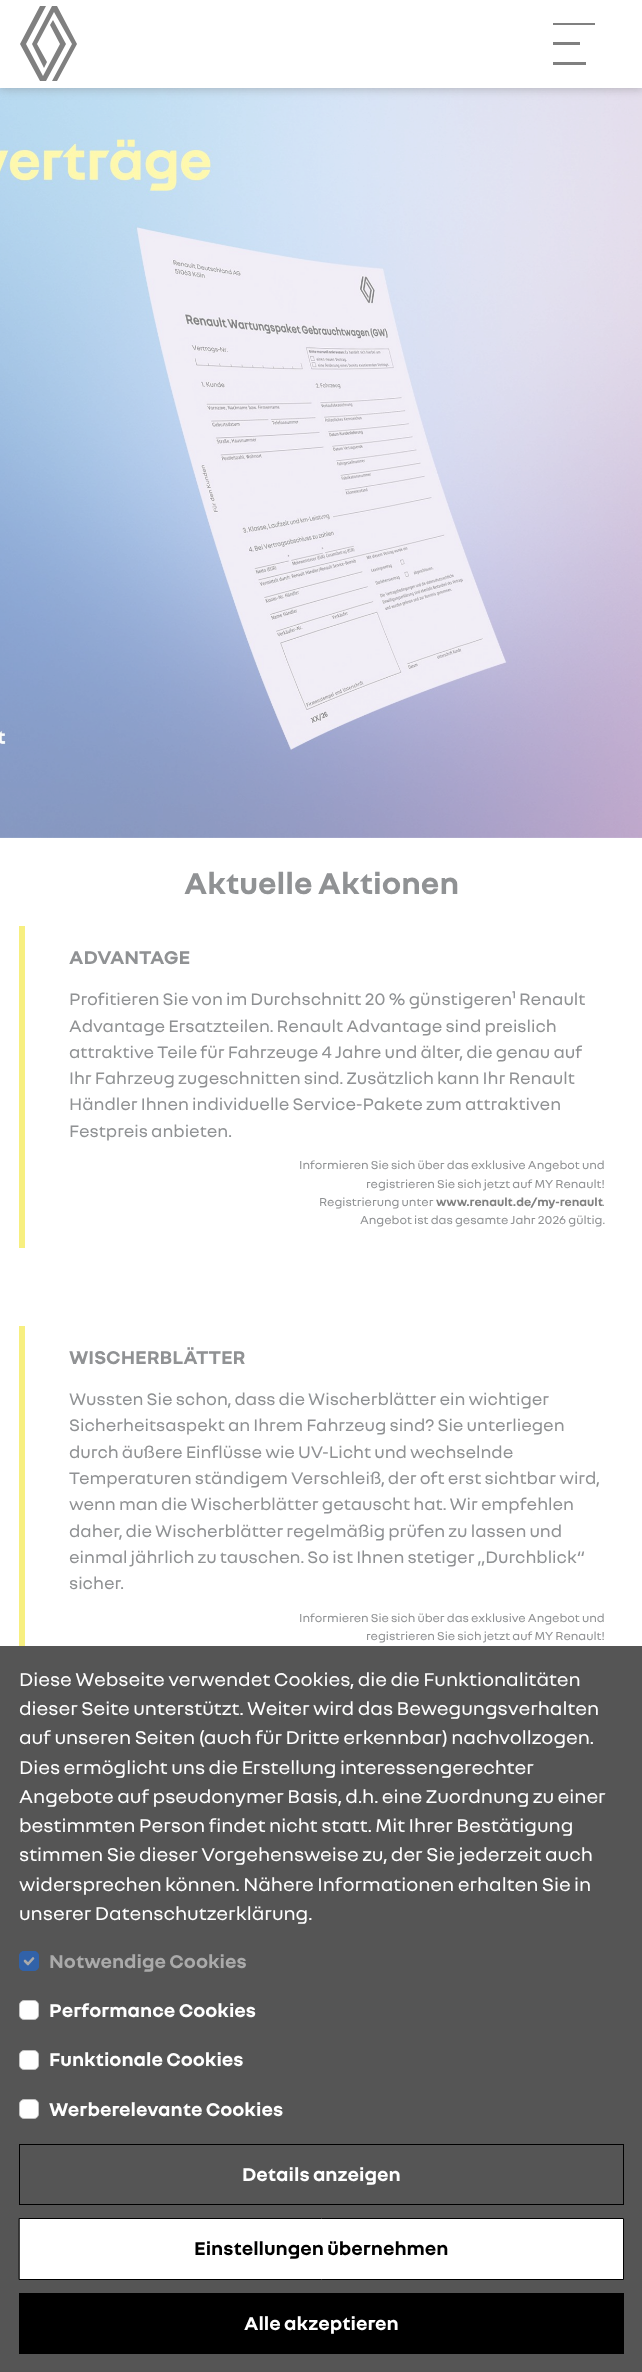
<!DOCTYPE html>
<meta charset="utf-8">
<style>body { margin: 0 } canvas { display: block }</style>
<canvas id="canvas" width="642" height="2372"></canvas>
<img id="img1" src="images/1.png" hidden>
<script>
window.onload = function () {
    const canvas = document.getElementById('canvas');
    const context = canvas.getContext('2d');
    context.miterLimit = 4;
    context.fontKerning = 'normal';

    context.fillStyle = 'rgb(255, 255, 255)';
    context.fillRect(0, 0, 642, 2372);
    context.drawImage(document.getElementById('img1'), 0, 88, 642, 750);
    context.fillStyle = 'rgba(128, 128, 128, 0.4)';
    context.filter = 'blur(4.5px)';
    context.beginPath();
    context.rect(0, 3, 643, 87);
    context.fill();
    context.filter = 'none';
    context.fillStyle = 'rgb(255, 255, 255)';
    context.fillRect(0, 0, 642, 88);
    context.fillStyle = 'rgb(128, 128, 128)';
    context.beginPath();
    context.moveTo(66, 44);
    context.lineTo(46, 81);
    context.lineTo(40, 81);
    context.lineTo(20, 44);
    context.lineTo(40, 6);
    context.lineTo(46, 6);
    context.lineTo(26, 44);
    context.lineTo(43, 76);
    context.lineTo(60, 44);
    context.lineTo(50, 25);
    context.lineTo(53, 20);
    context.closePath();
    context.moveTo(57, 6);
    context.lineTo(52, 6);
    context.lineTo(32, 44);
    context.lineTo(44, 68);
    context.lineTo(47, 62);
    context.lineTo(37, 44);
    context.lineTo(54, 12);
    context.lineTo(72, 44);
    context.lineTo(52, 81);
    context.lineTo(57, 81);
    context.lineTo(77, 44);
    context.closePath();
    context.fill();
    context.beginPath();
    context.moveTo(595, 23);
    context.lineTo(595, 25);
    context.lineTo(553, 25);
    context.lineTo(553, 23);
    context.closePath();
    context.moveTo(580, 42);
    context.lineTo(553, 42);
    context.lineTo(553, 45);
    context.lineTo(580, 45);
    context.closePath();
    context.moveTo(553, 65);
    context.lineTo(586, 65);
    context.lineTo(586, 62);
    context.lineTo(553, 62);
    context.closePath();
    context.fill();
    context.fillStyle = 'rgb(247, 239, 128)';
    context.fillRect(19, 926, 6, 322);
    context.fillRect(19, 1326, 6, 320);
    context.fillStyle = 'rgb(85, 85, 85)';
    context.fillRect(0, 1646, 642, 726);
    context.fillStyle = 'rgb(49, 98, 169)';
    context.beginPath();
    context.roundRect(19, 1951, 20, 20, 5);
    context.fill();
    context.beginPath();
    context.moveTo(25, 1961);
    context.lineTo(28, 1964);
    context.lineTo(33, 1958.5);
    context.strokeStyle = 'rgb(170, 170, 170)';
    context.lineWidth = 2.6;
    context.lineCap = 'round';
    context.lineJoin = 'round';
    context.stroke();
    context.beginPath();
    context.roundRect(19.5, 1951.5, 19, 19, 4.5);
    context.strokeStyle = 'rgb(49, 98, 169)';
    context.lineWidth = 1;
    context.lineJoin = 'miter';
    context.stroke();
    context.fillStyle = 'rgb(255, 255, 255)';
    context.beginPath();
    context.roundRect(19.5, 2000.5, 19, 19, 4.5);
    context.fill();
    context.strokeStyle = 'rgb(192, 192, 192)';
    context.stroke();
    context.beginPath();
    context.roundRect(19.5, 2050.5, 19, 19, 4.5);
    context.fill();
    context.stroke();
    context.beginPath();
    context.roundRect(19.5, 2099.5, 19, 19, 4.5);
    context.fill();
    context.stroke();
    context.strokeStyle = 'rgb(0, 0, 0)';
    context.strokeRect(19.5, 2144.5, 604, 60);
    context.beginPath();
    context.rect(19.5, 2218.5, 604, 61);
    context.fill();
    context.stroke();
    context.fillStyle = 'rgb(0, 0, 0)';
    context.fillRect(19, 2293, 605, 61);
    context.font = 'bold 32.25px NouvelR';
    context.fillStyle = 'rgb(144, 146, 148)';
    context.fillText('Aktuelle Aktionen', 184, 894);
    context.font = 'bold 20px NouvelR';
    context.fillText('ADVANTAGE', 69, 964);
    context.font = '18px NouvelR';
    context.fillText('Profitieren Sie von im Durchschnitt 20 % günstigeren¹ Renault', 69, 1005);
    context.fillText('Advantage Ersatzteilen. Renault Advantage sind preislich', 69, 1032);
    context.fillText('attraktive Teile für Fahrzeuge 4 Jahre und älter, die genau auf', 69, 1058);
    context.fillText('Ihr Fahrzeug zugeschnitten sind. Zusätzlich kann Ihr Renault', 69, 1084);
    context.fillText('Händler Ihnen individuelle Service-Pakete zum attraktiven', 69, 1110);
    context.fillText('Festpreis anbieten.', 69, 1137);
    context.font = '12.5px NouvelR';
    context.fillText('Informieren Sie sich über das exklusive Angebot und', 299, 1169);
    context.fillText('registrieren Sie sich jetzt auf MY Renault!', 366, 1188);
    context.fillText('Registrierung unter', 319, 1206);
    context.font = 'bold 12.5px NouvelR';
    context.fillStyle = 'rgb(128, 128, 128)';
    context.fillText('www.renault.de/my-renault', 436, 1206);
    context.font = '12.5px NouvelR';
    context.fillStyle = 'rgb(144, 146, 148)';
    context.fillText('.', 602, 1206);
    context.fillText('Angebot ist das gesamte Jahr 2026 gültig.', 360, 1224);
    context.font = 'bold 20px NouvelR';
    context.fillText('WISCHERBLÄTTER', 69, 1364);
    context.font = '18px NouvelR';
    context.fillText('Wussten Sie schon, dass die Wischerblätter ein wichtiger', 69, 1405);
    context.fillText('Sicherheitsaspekt an Ihrem Fahrzeug sind? Sie unterliegen', 69, 1431);
    context.fillText('durch äußere Einflüsse wie UV-Licht und wechselnde', 69, 1458);
    context.fillText('Temperaturen ständigem Verschleiß, der oft erst sichtbar wird,', 69, 1484);
    context.fillText('wenn man die Wischerblätter getauscht hat. Wir empfehlen', 69, 1510);
    context.fillText('daher, die Wischerblätter regelmäßig prüfen zu lassen und', 69, 1537);
    context.fillText('einmal jährlich zu tauschen. So ist Ihnen stetiger „Durchblick“', 69, 1563);
    context.fillText('sicher.', 69, 1589);
    context.font = '12.5px NouvelR';
    context.fillText('Informieren Sie sich über das exklusive Angebot und', 299, 1622);
    context.fillText('registrieren Sie sich jetzt auf MY Renault!', 366, 1640);
    context.font = '20px NouvelR';
    context.fillStyle = 'rgb(255, 255, 255)';
    context.fillText('Diese Webseite verwendet Cookies, die die Funktionalitäten', 19, 1686);
    context.fillText('dieser Seite unterstützt. Weiter wird das Bewegungsverhalten', 19, 1715);
    context.fillText('auf unseren Seiten (auch für Dritte erkennbar) nachvollzogen.', 19, 1744);
    context.fillText('Dies ermöglicht uns die Erstellung interessengerechter', 19, 1774);
    context.fillText('Angebote auf pseudonymer Basis, d.h. eine Zuordnung zu einer', 19, 1803);
    context.fillText('bestimmten Person findet nicht statt. Mit Ihrer Bestätigung', 19, 1832);
    context.fillText('stimmen Sie dieser Vorgehensweise zu, der Sie jederzeit auch', 19, 1861);
    context.fillText('widersprechen können. Nähere Informationen erhalten Sie in', 19, 1891);
    context.fillText('unserer Datenschutzerklärung.', 19, 1920);
    context.font = 'bold 20px NouvelR';
    context.fillStyle = 'rgb(170, 170, 170)';
    context.fillText('Notwendige Cookies', 49, 1968);
    context.fillStyle = 'rgb(255, 255, 255)';
    context.fillText('Performance Cookies', 49, 2017);
    context.fillText('Funktionale Cookies', 49, 2066);
    context.fillText('Werberelevante Cookies', 49, 2116);
    context.fillText('Details anzeigen', 242, 2181);
    context.fillStyle = 'rgb(0, 0, 0)';
    context.fillText('Einstellungen übernehmen', 194, 2255);
    context.fillStyle = 'rgb(255, 255, 255)';
    context.fillText('Alle akzeptieren', 244, 2330);
};
</script>
